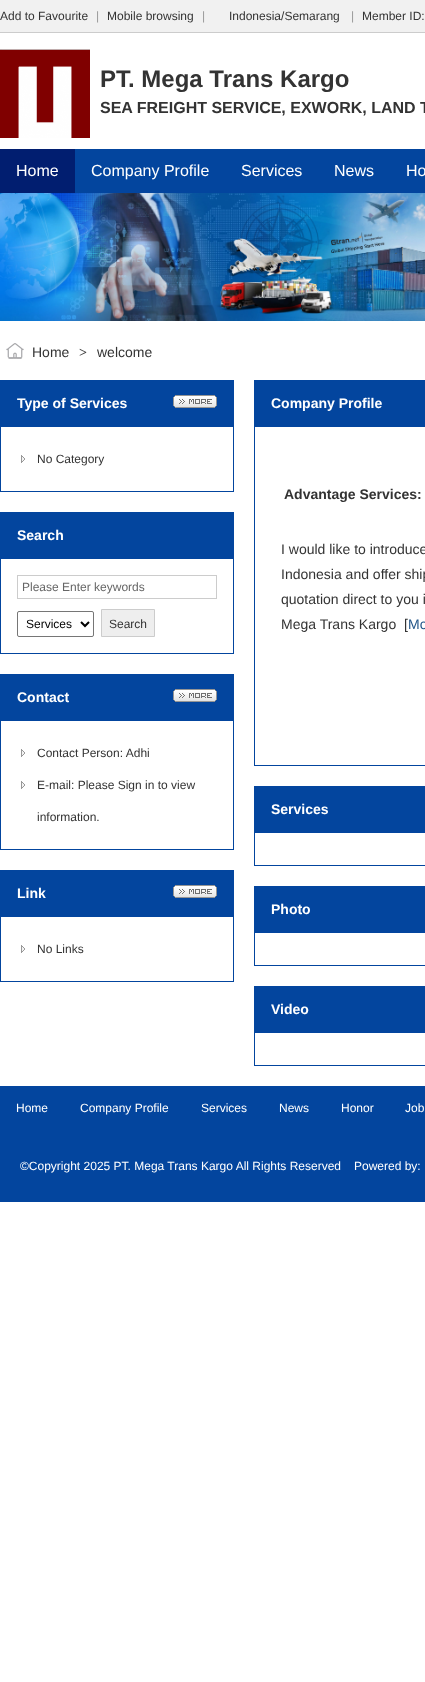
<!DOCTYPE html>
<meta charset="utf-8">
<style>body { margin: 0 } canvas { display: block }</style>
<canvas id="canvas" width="425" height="1682"></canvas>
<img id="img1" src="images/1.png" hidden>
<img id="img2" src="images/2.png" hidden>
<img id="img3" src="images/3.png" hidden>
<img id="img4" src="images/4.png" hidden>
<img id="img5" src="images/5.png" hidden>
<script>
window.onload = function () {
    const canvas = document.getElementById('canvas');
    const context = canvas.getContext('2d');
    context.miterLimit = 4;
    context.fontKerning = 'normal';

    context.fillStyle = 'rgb(255, 255, 255)';
    context.fillRect(0, 0, 425, 1682);
    context.fillStyle = 'rgb(241, 241, 241)';
    context.fillRect(0, 0, 425, 32);
    context.fillStyle = 'rgb(204, 204, 204)';
    context.fillRect(0, 32, 425, 1);
    context.drawImage(document.getElementById('img1'), 0, 49, 90, 89);
    context.fillStyle = 'rgb(3, 69, 158)';
    context.fillRect(75, 149, 350, 44);
    context.fillStyle = 'rgb(1, 30, 112)';
    context.fillRect(0, 149, 75, 44);
    context.drawImage(document.getElementById('img2'), 0, 193, 425, 128);
    context.drawImage(document.getElementById('img3'), 6, 343, 18, 16);
    context.strokeStyle = 'rgb(3, 69, 158)';
    context.strokeRect(0.5, 380.5, 233, 45);
    context.fillStyle = 'rgb(3, 69, 158)';
    context.fillRect(1, 381, 232, 44);
    context.drawImage(document.getElementById('img4'), 173, 395, 44, 13);
    context.strokeRect(0.5, 426.5, 233, 65);
    context.drawImage(document.getElementById('img5'), 21, 455, 4, 8);
    context.strokeRect(0.5, 512.5, 233, 45);
    context.fillRect(1, 513, 232, 44);
    context.strokeRect(0.5, 558.5, 233, 95);
    context.strokeStyle = 'rgb(204, 204, 204)';
    context.strokeRect(17.5, 575.5, 199, 23);
    context.beginPath();
    context.roundRect(17.5, 611.5, 76, 25, 1.5);
    context.strokeStyle = 'rgb(118, 118, 118)';
    context.stroke();
    context.beginPath();
    context.moveTo(81, 622);
    context.lineTo(85, 626);
    context.lineTo(89, 622);
    context.strokeStyle = 'rgb(0, 0, 0)';
    context.lineWidth = 2;
    context.stroke();
    context.fillStyle = 'rgb(238, 238, 238)';
    context.beginPath();
    context.rect(101.5, 609.5, 53, 27);
    context.fill();
    context.strokeStyle = 'rgb(204, 204, 204)';
    context.lineWidth = 1;
    context.stroke();
    context.strokeStyle = 'rgb(3, 69, 158)';
    context.strokeRect(0.5, 674.5, 233, 45);
    context.fillStyle = 'rgb(3, 69, 158)';
    context.fillRect(1, 675, 232, 44);
    context.drawImage(document.getElementById('img4'), 173, 689, 44, 13);
    context.strokeRect(0.5, 720.5, 233, 129);
    context.drawImage(document.getElementById('img5'), 21, 749, 4, 8);
    context.drawImage(document.getElementById('img5'), 21, 781, 4, 8);
    context.strokeRect(0.5, 870.5, 233, 45);
    context.fillRect(1, 871, 232, 44);
    context.drawImage(document.getElementById('img4'), 173, 885, 44, 13);
    context.strokeRect(0.5, 916.5, 233, 65);
    context.drawImage(document.getElementById('img5'), 21, 945, 4, 8);
    context.strokeRect(254.5, 380.5, 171, 45);
    context.fillRect(255, 381, 170, 44);
    context.strokeRect(254.5, 426.5, 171, 339);
    context.strokeRect(254.5, 786.5, 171, 45);
    context.fillRect(255, 787, 170, 44);
    context.strokeRect(254.5, 832.5, 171, 33);
    context.strokeRect(254.5, 886.5, 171, 45);
    context.fillRect(255, 887, 170, 44);
    context.strokeRect(254.5, 932.5, 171, 33);
    context.strokeRect(254.5, 986.5, 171, 45);
    context.fillRect(255, 987, 170, 44);
    context.strokeRect(254.5, 1032.5, 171, 33);
    context.fillRect(0, 1086, 425, 116);
    context.font = '12px Liberation Sans';
    context.fillStyle = 'rgb(51, 51, 51)';
    context.fillText('Add to Favourite', 0, 20);
    context.fillStyle = 'rgb(153, 153, 153)';
    context.fillText('|', 96, 20);
    context.fillStyle = 'rgb(51, 51, 51)';
    context.fillText('Mobile browsing', 107, 20);
    context.fillStyle = 'rgb(153, 153, 153)';
    context.fillText('|', 202, 20);
    context.fillStyle = 'rgb(51, 51, 51)';
    context.fillText('Indonesia/Semarang', 229, 20);
    context.fillStyle = 'rgb(153, 153, 153)';
    context.fillText('|', 351, 20);
    context.fillStyle = 'rgb(51, 51, 51)';
    context.fillText('Member ID:', 362, 20);
    context.font = 'bold 24px Liberation Sans';
    context.fillText('PT. Mega Trans Kargo', 100, 87);
    context.font = 'bold 16px Liberation Sans';
    context.fillText('SEA FREIGHT SERVICE, EXWORK, LAND T', 100, 113);
    context.font = '16px Liberation Sans';
    context.fillStyle = 'rgb(255, 255, 255)';
    context.fillText('Home', 16, 176);
    context.fillText('Company Profile', 91, 176);
    context.fillText('Services', 241, 176);
    context.fillText('News', 334, 176);
    context.fillText('Ho', 406, 176);
    context.font = '14px Liberation Sans';
    context.fillStyle = 'rgb(51, 51, 51)';
    context.fillText('Home', 32, 357);
    context.font = 'bold 14px Liberation Serif';
    context.fillStyle = 'rgb(68, 68, 68)';
    context.fillText('>', 79, 357);
    context.font = '14px Liberation Sans';
    context.fillStyle = 'rgb(51, 51, 51)';
    context.fillText('welcome', 97, 357);
    context.font = 'bold 14px Liberation Sans';
    context.fillStyle = 'rgb(255, 255, 255)';
    context.fillText('Type of Services', 17, 408);
    context.font = '12px Liberation Sans';
    context.fillStyle = 'rgb(51, 51, 51)';
    context.fillText('No Category', 37, 463);
    context.font = 'bold 14px Liberation Sans';
    context.fillStyle = 'rgb(255, 255, 255)';
    context.fillText('Search', 17, 540);
    context.font = '12px Liberation Sans';
    context.fillStyle = 'rgb(102, 102, 102)';
    context.fillText('Please Enter keywords', 22, 591);
    context.fillStyle = 'rgb(0, 0, 0)';
    context.fillText('Services', 26, 628);
    context.fillStyle = 'rgb(51, 51, 51)';
    context.fillText('Search', 109, 628);
    context.font = 'bold 14px Liberation Sans';
    context.fillStyle = 'rgb(255, 255, 255)';
    context.fillText('Contact', 17, 702);
    context.font = '12px Liberation Sans';
    context.fillStyle = 'rgb(51, 51, 51)';
    context.fillText('Contact Person: Adhi', 37, 757);
    context.fillText('E-mail: Please Sign in to view', 37, 789);
    context.fillText('information.', 37, 821);
    context.font = 'bold 14px Liberation Sans';
    context.fillStyle = 'rgb(255, 255, 255)';
    context.fillText('Link', 17, 898);
    context.font = '12px Liberation Sans';
    context.fillStyle = 'rgb(51, 51, 51)';
    context.fillText('No Links', 37, 953);
    context.font = 'bold 14px Liberation Sans';
    context.fillStyle = 'rgb(255, 255, 255)';
    context.fillText('Company Profile', 271, 408);
    context.fillStyle = 'rgb(51, 51, 51)';
    context.fillText('Advantage Services:', 284, 499);
    context.font = '14px Liberation Sans';
    context.fillText('I would like to introduce', 281, 554);
    context.fillText('Indonesia and offer ship', 281, 579);
    context.fillText('quotation direct to you i', 281, 604);
    context.fillText('Mega Trans Kargo  [', 281, 629);
    context.fillStyle = 'rgb(34, 85, 136)';
    context.fillText('Mo', 408, 629);
    context.font = 'bold 14px Liberation Sans';
    context.fillStyle = 'rgb(255, 255, 255)';
    context.fillText('Services', 271, 814);
    context.fillText('Photo', 271, 914);
    context.fillText('Video', 271, 1014);
    context.font = '12px Liberation Sans';
    context.fillText('Home', 16, 1112);
    context.fillText('Company Profile', 80, 1112);
    context.fillText('Services', 201, 1112);
    context.fillText('News', 279, 1112);
    context.fillText('Honor', 341, 1112);
    context.fillText('Job', 405, 1112);
    context.fillText('©Copyright 2025 PT. Mega Trans Kargo All Rights Reserved', 20, 1170);
    context.fillText('Powered by:', 354, 1170);
};
</script>
